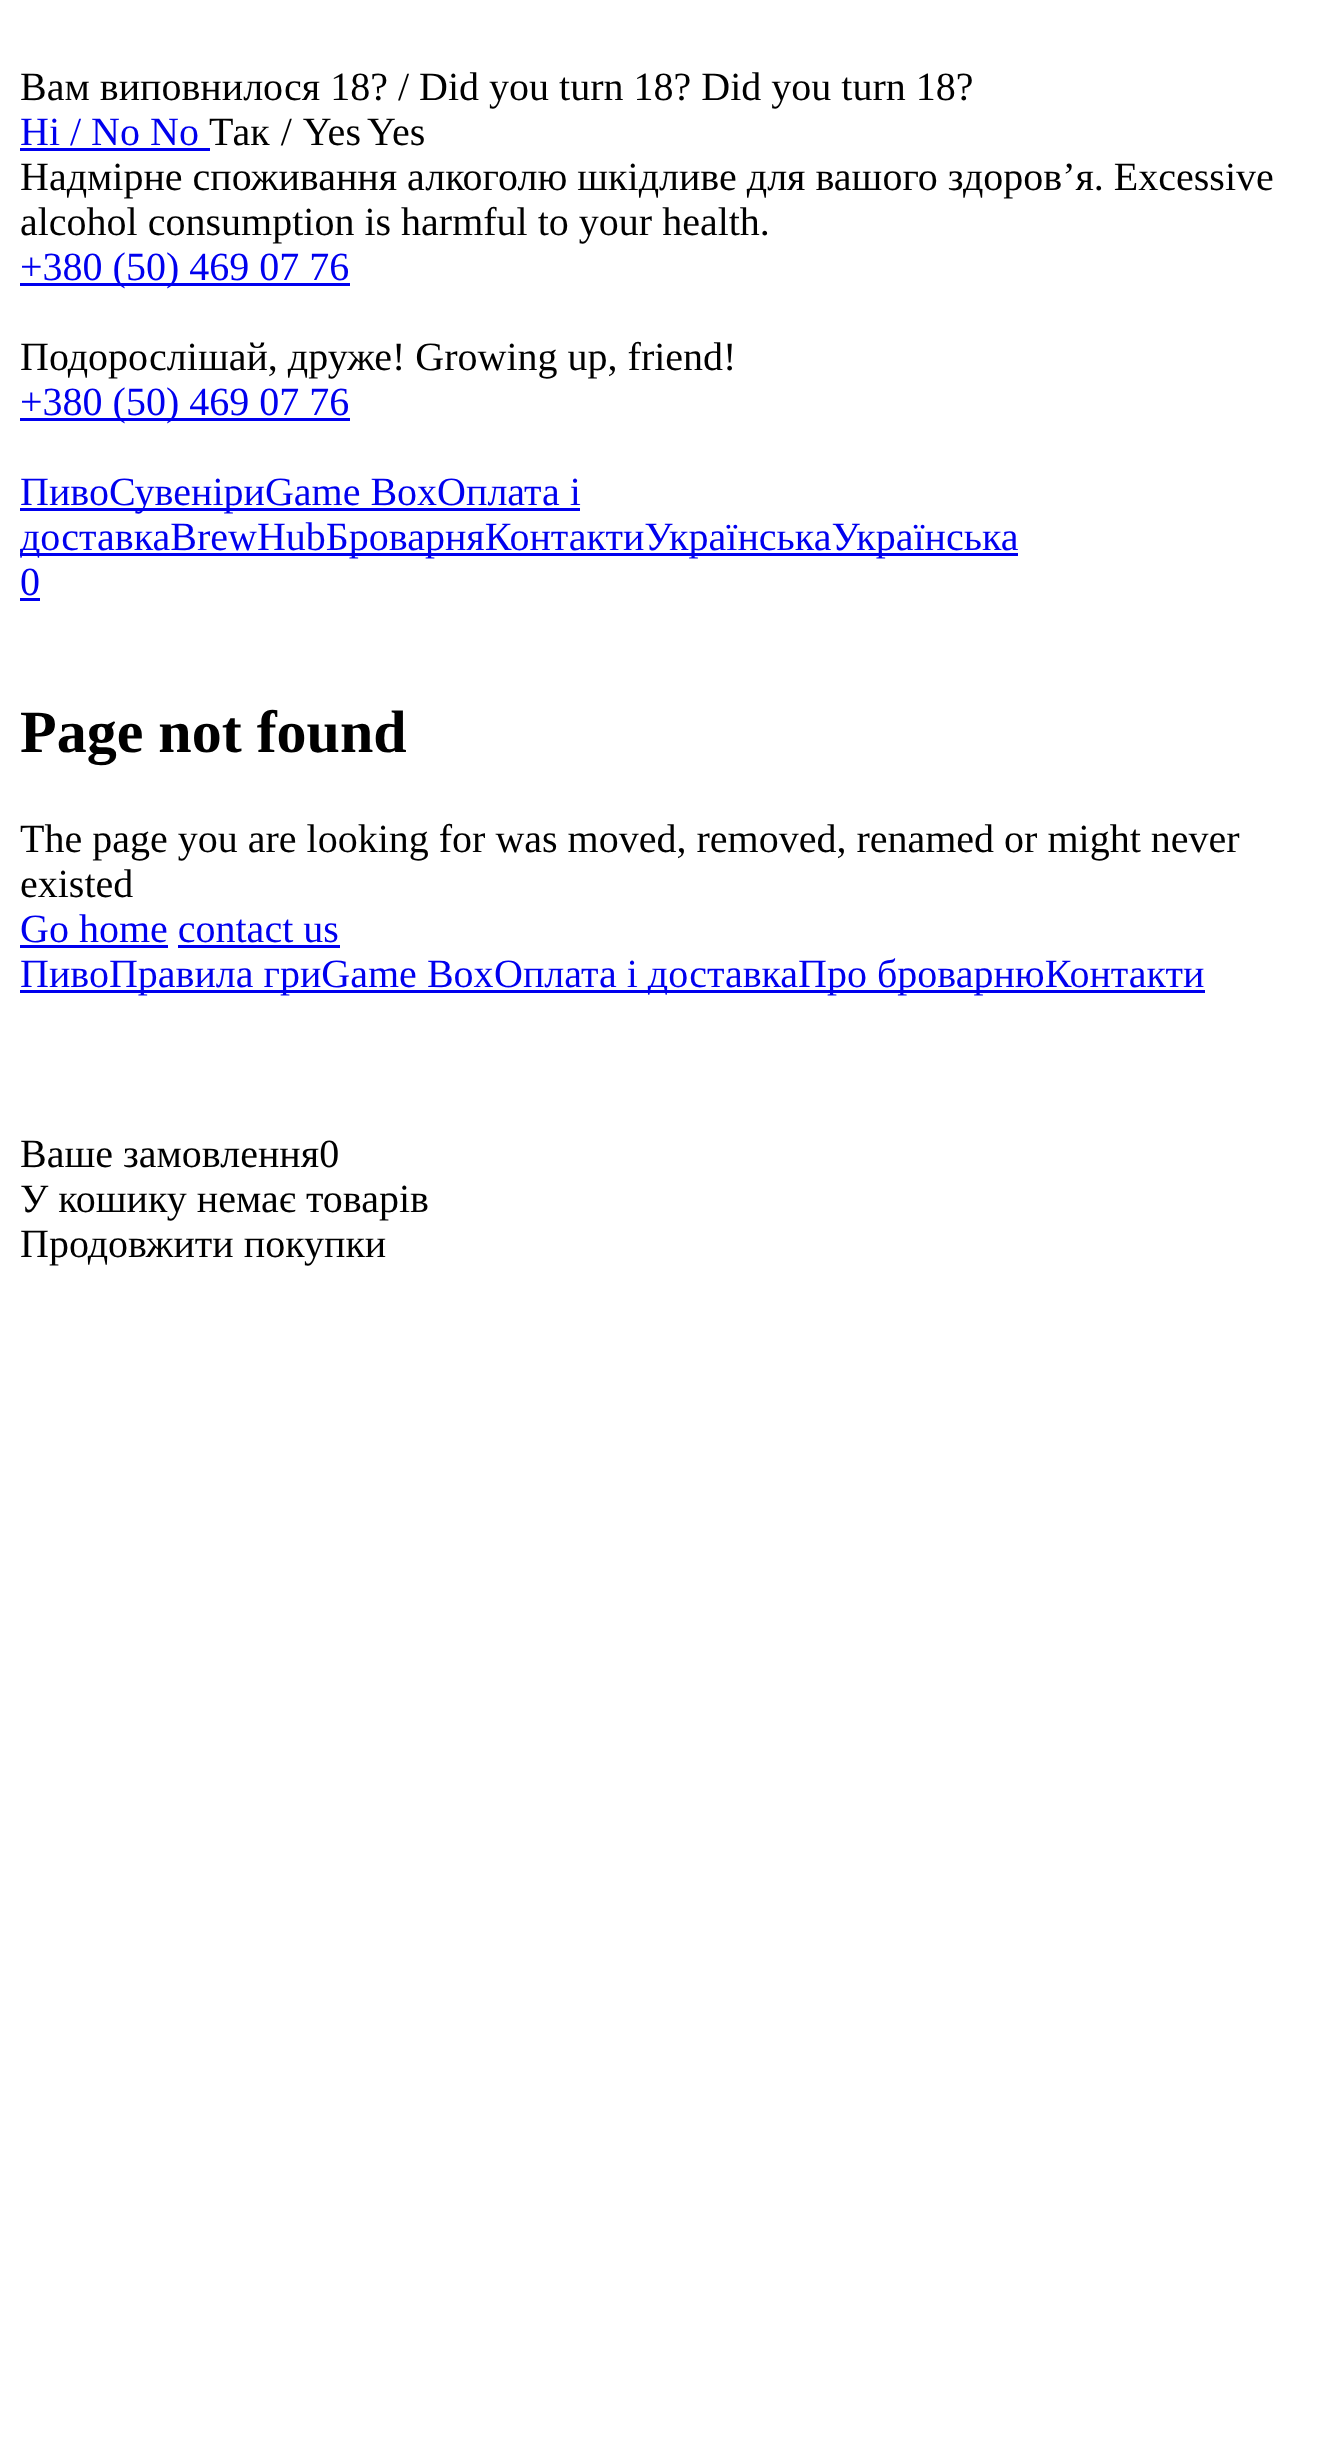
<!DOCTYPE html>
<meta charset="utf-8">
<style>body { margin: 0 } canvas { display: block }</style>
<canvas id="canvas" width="1321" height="2447"></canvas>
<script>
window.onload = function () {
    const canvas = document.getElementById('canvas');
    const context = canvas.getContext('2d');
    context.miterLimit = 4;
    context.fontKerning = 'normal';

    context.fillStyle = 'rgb(255, 255, 255)';
    context.fillRect(0, 0, 1321, 2447);
    context.fillStyle = 'rgb(0, 0, 238)';
    context.fillRect(20, 148, 190, 3);
    context.fillRect(20, 283, 330, 3);
    context.fillRect(20, 418, 330, 3);
    context.fillRect(20, 508, 560, 3);
    context.fillRect(20, 553, 998, 3);
    context.fillRect(20, 598, 20, 3);
    context.fillRect(20, 945, 148, 3);
    context.fillRect(178, 945, 162, 3);
    context.fillRect(20, 990, 473, 3);
    context.fillRect(493, 990, 712, 3);
    context.font = '40px Liberation Serif';
    context.fillStyle = 'rgb(0, 0, 0)';
    context.fillText('Вам виповнилося 18? / Did you turn 18? Did you turn 18?', 20, 100);
    context.fillStyle = 'rgb(0, 0, 238)';
    context.fillText('Ні / No No', 20, 145);
    context.wordSpacing = '1px';
    context.fillStyle = 'rgb(0, 0, 0)';
    context.fillText('Так / Yes', 209, 145);
    context.wordSpacing = '0px';
    context.fillText('Yes', 367, 145);
    context.fillText('Надмiрне споживання алкоголю шкiдливе для вашого здоров’я. Excessive', 20, 190);
    context.fillText('alcohol consumption is harmful to your health.', 20, 235);
    context.fillStyle = 'rgb(0, 0, 238)';
    context.fillText('+380 (50) 469 07 76', 20, 280);
    context.fillStyle = 'rgb(0, 0, 0)';
    context.fillText('Подорослішай, друже! Growing up, friend!', 20, 370);
    context.fillStyle = 'rgb(0, 0, 238)';
    context.fillText('+380 (50) 469 07 76', 20, 415);
    context.fillText('ПивоСувеніриGame BoxОплата і', 20, 505);
    context.fillText('доставкаBrewHubБроварняКонтактиУкраїнськаУкраїнська', 20, 550);
    context.fillText('0', 20, 595);
    context.font = 'bold 60px Liberation Serif';
    context.fillStyle = 'rgb(0, 0, 0)';
    context.fillText('Page not found', 20, 752);
    context.font = '40px Liberation Serif';
    context.fillText('The page you are looking for was moved, removed, renamed or might never', 20, 852);
    context.fillText('existed', 20, 897);
    context.fillStyle = 'rgb(0, 0, 238)';
    context.fillText('Go home contact us', 20, 942);
    context.fillText('ПивоПравила гриGame Box', 20, 987);
    context.fillText('Оплата і доставкаПро броварнюКонтакти', 494, 987);
    context.fillStyle = 'rgb(0, 0, 0)';
    context.fillText('Ваше замовлення0', 20, 1167);
    context.fillText('У кошику немає товарів', 20, 1212);
    context.fillText('Продовжити покупки', 20, 1257);
};
</script>
